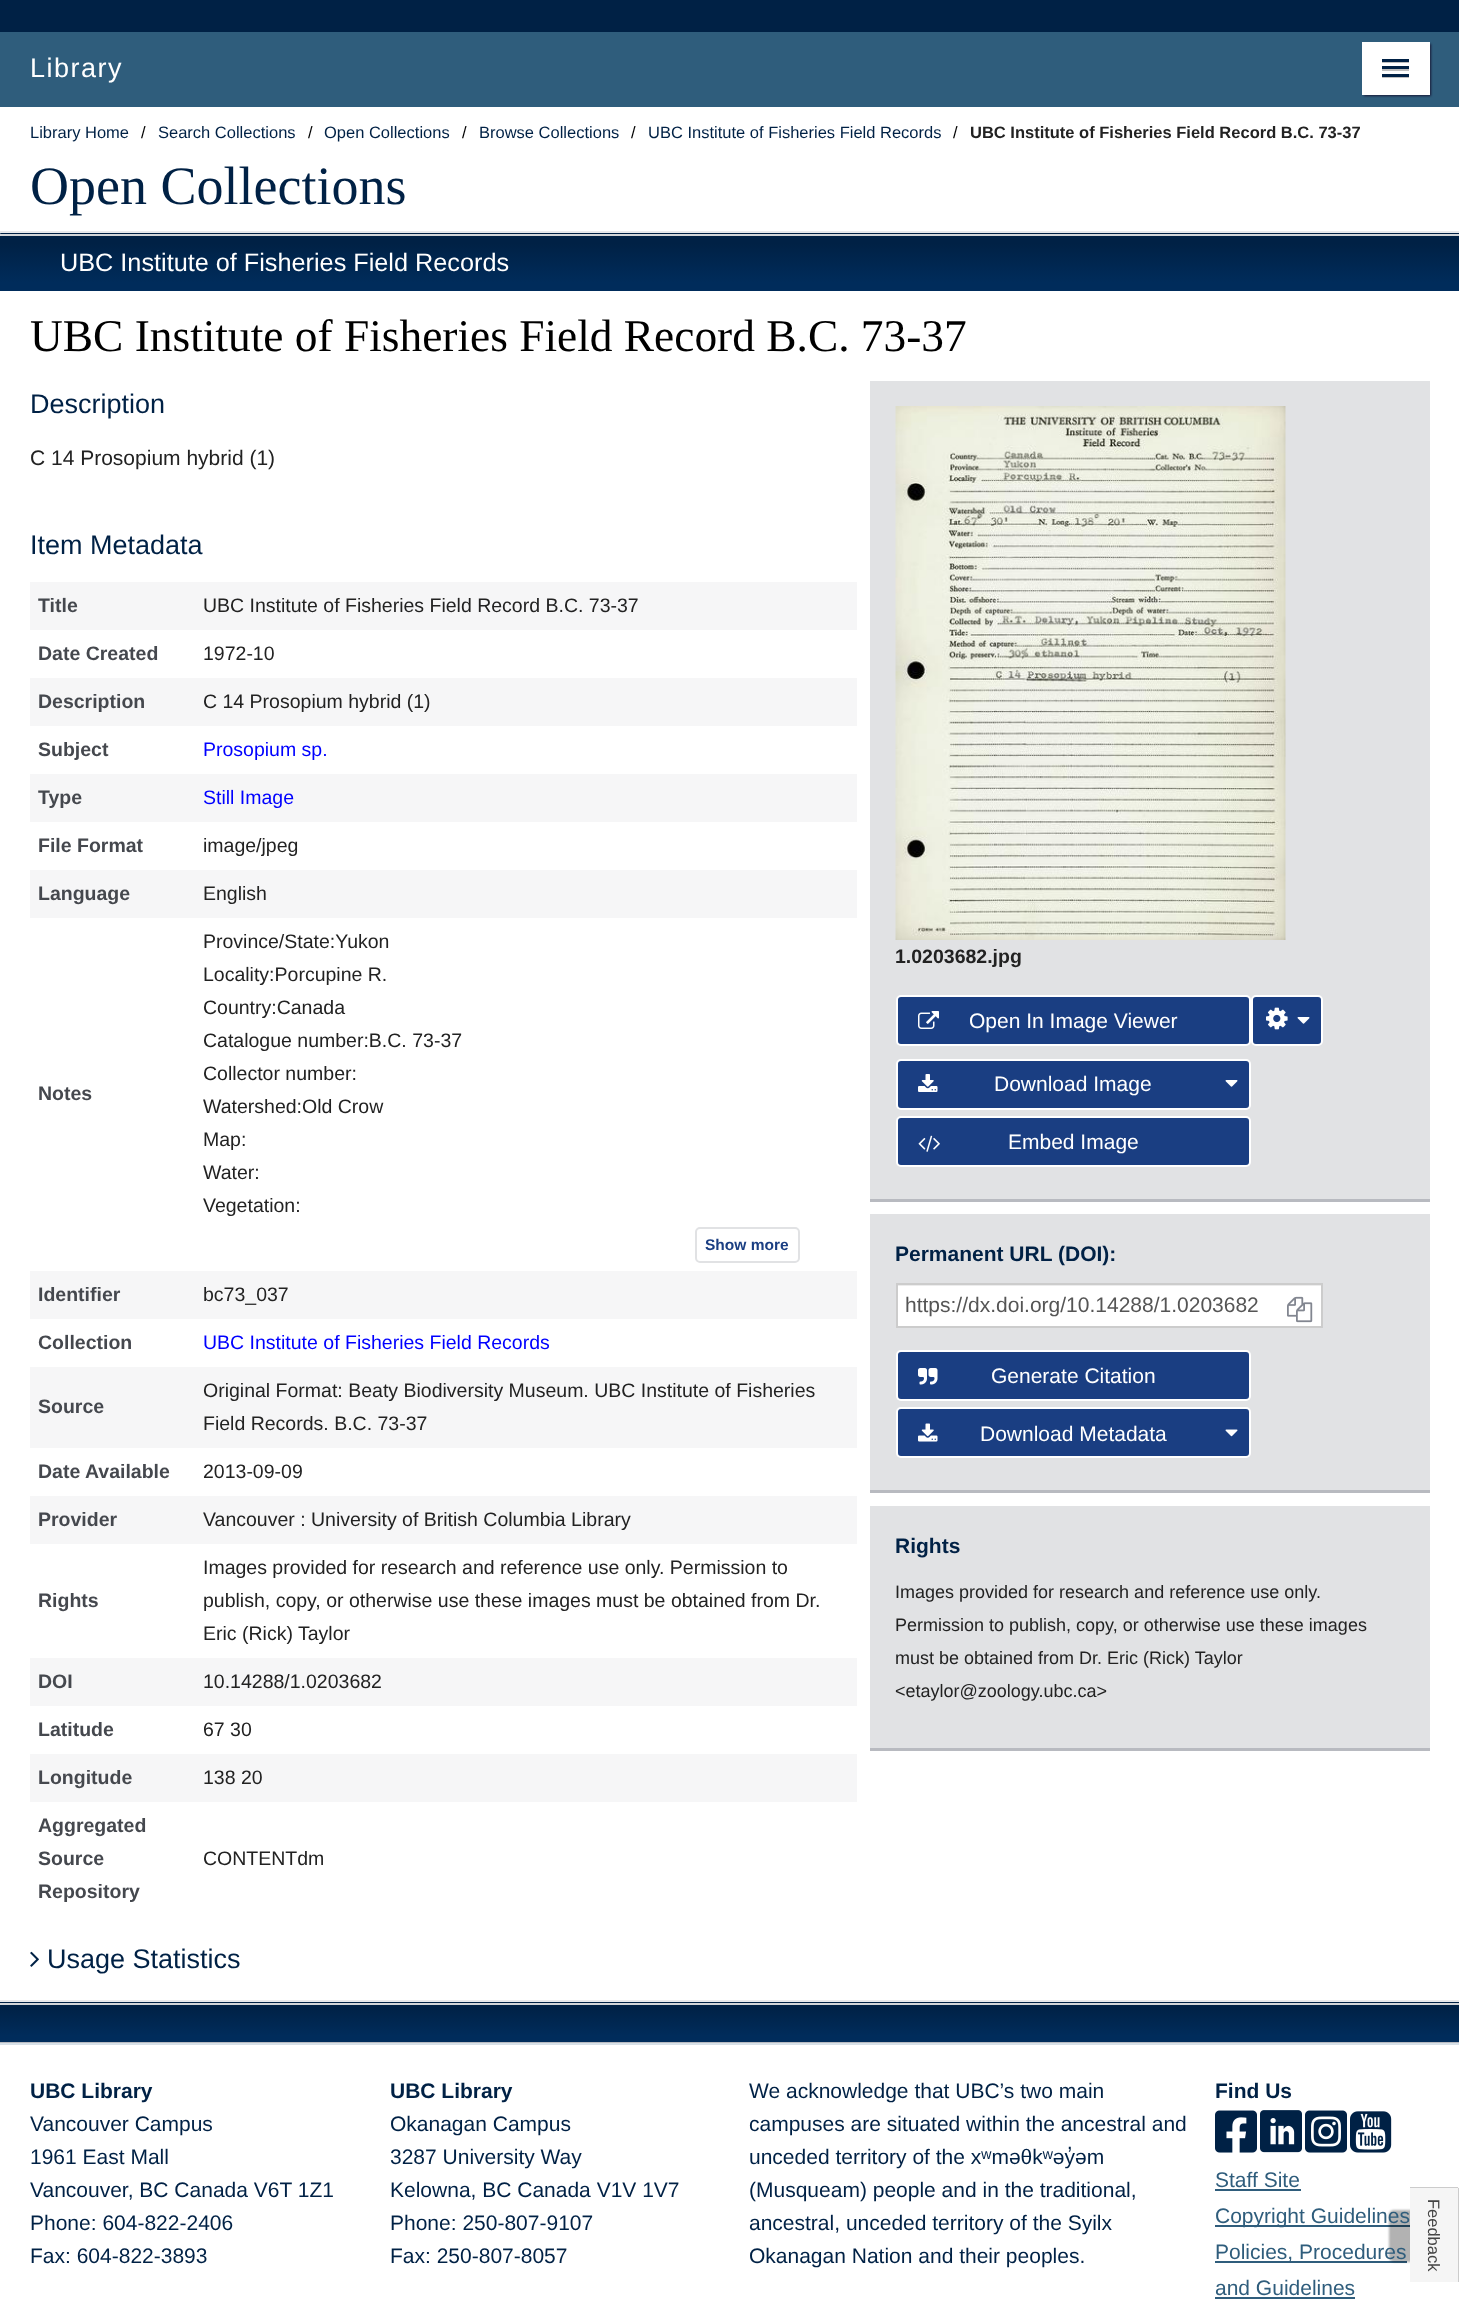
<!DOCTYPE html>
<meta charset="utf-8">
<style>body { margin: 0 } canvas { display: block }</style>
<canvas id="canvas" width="1459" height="2313"></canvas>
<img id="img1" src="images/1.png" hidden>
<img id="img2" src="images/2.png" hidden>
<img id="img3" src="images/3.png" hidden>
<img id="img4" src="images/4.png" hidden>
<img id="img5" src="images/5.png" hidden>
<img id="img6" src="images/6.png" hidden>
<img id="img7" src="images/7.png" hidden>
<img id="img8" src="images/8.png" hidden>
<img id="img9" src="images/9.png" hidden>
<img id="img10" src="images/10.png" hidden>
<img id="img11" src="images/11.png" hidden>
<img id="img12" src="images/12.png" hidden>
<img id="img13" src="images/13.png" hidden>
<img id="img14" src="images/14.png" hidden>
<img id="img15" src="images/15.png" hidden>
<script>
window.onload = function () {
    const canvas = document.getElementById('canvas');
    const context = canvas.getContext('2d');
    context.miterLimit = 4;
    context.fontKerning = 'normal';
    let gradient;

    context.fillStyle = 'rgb(255, 255, 255)';
    context.fillRect(0, 0, 1459, 2313);
    context.fillStyle = 'rgb(0, 33, 69)';
    context.fillRect(0, 0, 1459, 32);
    context.fillStyle = 'rgb(47, 93, 124)';
    context.fillRect(0, 32, 1459, 75);
    context.fillStyle = 'rgb(25, 25, 56)';
    context.filter = 'blur(1px)';
    context.beginPath();
    context.rect(1364, 44, 67, 52);
    context.fill();
    context.filter = 'none';
    context.fillStyle = 'rgb(255, 255, 255)';
    context.fillRect(1362, 42, 68, 53);
    context.fillStyle = 'rgb(191, 191, 191)';
    context.beginPath();
    context.moveTo(1382, 61.5);
    context.lineTo(1382, 63);
    context.lineTo(1409, 63);
    context.lineTo(1409, 60);
    context.lineTo(1408.5, 60);
    context.lineTo(1408.5, 61.5);
    context.closePath();
    context.fill();
    context.fillStyle = 'rgb(0, 33, 69)';
    context.fillRect(1382, 59, 27, 3);
    context.fillStyle = 'rgb(191, 191, 191)';
    context.beginPath();
    context.moveTo(1382, 69);
    context.lineTo(1382, 71);
    context.lineTo(1409, 71);
    context.lineTo(1409, 68);
    context.lineTo(1408.5, 68);
    context.lineTo(1408.5, 69);
    context.closePath();
    context.fill();
    context.fillStyle = 'rgb(0, 33, 69)';
    context.fillRect(1382, 66, 27, 3);
    context.fillStyle = 'rgb(191, 191, 191)';
    context.beginPath();
    context.moveTo(1382, 76.5);
    context.lineTo(1382, 78);
    context.lineTo(1409, 78);
    context.lineTo(1409, 75);
    context.lineTo(1408.5, 75);
    context.lineTo(1408.5, 76.5);
    context.closePath();
    context.fill();
    context.fillStyle = 'rgb(0, 33, 69)';
    context.fillRect(1382, 74, 27, 3);
    context.beginPath();
    context.roundRect(0, 233, 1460, 2, 1);
    context.fill();
    context.fillStyle = 'rgb(233, 233, 235)';
    context.fillRect(0, 231, 1459, 2);
    context.fillStyle = 'rgb(211, 213, 216)';
    context.fillRect(0, 234, 1459, 2);
    gradient = context.createLinearGradient(730, 235, 730, 291);
    gradient.addColorStop(0.15, 'rgb(0, 33, 69)');
    gradient.addColorStop(0.85, 'rgb(0, 44, 91)');
    context.fillStyle = gradient;
    context.fillRect(0, 236, 1459, 55);
    context.fillStyle = 'rgb(246, 246, 247)';
    context.fillRect(30, 582, 827, 48);
    context.fillRect(30, 678, 827, 48);
    context.fillRect(30, 774, 827, 48);
    context.fillRect(30, 870, 827, 48);
    context.beginPath();
    context.roundRect(696, 1228, 103, 34, 4);
    context.strokeStyle = 'rgb(225, 226, 228)';
    context.lineWidth = 2;
    context.stroke();
    context.fillRect(30, 1271, 827, 48);
    context.fillRect(30, 1367, 827, 81);
    context.fillRect(30, 1496, 827, 48);
    context.fillRect(30, 1658, 827, 48);
    context.fillRect(30, 1754, 827, 48);
    context.fillStyle = 'rgb(225, 226, 228)';
    context.fillRect(870, 381, 560, 818);
    context.fillStyle = 'rgb(184, 186, 192)';
    context.fillRect(870, 1199, 560, 3);
    context.drawImage(document.getElementById('img1'), 895, 406, 391, 534);
    context.fillStyle = 'rgb(26, 62, 130)';
    context.beginPath();
    context.roundRect(897, 996, 353, 49, 4);
    context.fill();
    context.strokeStyle = 'rgb(255, 255, 255)';
    context.stroke();
    context.drawImage(document.getElementById('img2'), 918, 1011, 21, 18);
    context.beginPath();
    context.roundRect(1252, 996, 70, 49, 4);
    context.fill();
    context.stroke();
    context.drawImage(document.getElementById('img3'), 1266, 1007, 22, 23);
    context.drawImage(document.getElementById('img4'), 1297, 1017, 13, 7);
    context.beginPath();
    context.roundRect(897, 1060, 353, 49, 4);
    context.fill();
    context.stroke();
    context.drawImage(document.getElementById('img5'), 918, 1074, 20, 18);
    context.drawImage(document.getElementById('img4'), 1225, 1080, 13, 7);
    context.beginPath();
    context.roundRect(897, 1117, 353, 49, 4);
    context.fill();
    context.stroke();
    context.drawImage(document.getElementById('img6'), 918, 1135, 22, 17);
    context.fillStyle = 'rgb(225, 226, 228)';
    context.fillRect(870, 1214, 560, 276);
    context.fillStyle = 'rgb(184, 186, 192)';
    context.fillRect(870, 1490, 560, 3);
    context.fillStyle = 'rgb(255, 255, 255)';
    context.fillRect(898, 1286, 423, 40);
    context.fillStyle = 'rgb(236, 236, 236)';
    context.fillRect(897, 1285, 425, 1);
    context.strokeStyle = 'rgb(204, 204, 204)';
    context.strokeRect(897, 1284, 425, 43);
    context.drawImage(document.getElementById('img7'), 1287, 1296, 26, 27);
    context.fillStyle = 'rgb(26, 62, 130)';
    context.beginPath();
    context.roundRect(897, 1351, 353, 49, 4);
    context.fill();
    context.strokeStyle = 'rgb(255, 255, 255)';
    context.stroke();
    context.drawImage(document.getElementById('img8'), 918, 1368, 20, 17);
    context.beginPath();
    context.roundRect(897, 1408, 353, 49, 4);
    context.fill();
    context.stroke();
    context.drawImage(document.getElementById('img9'), 918, 1423, 20, 19);
    context.drawImage(document.getElementById('img10'), 1225, 1429, 13, 8);
    context.fillStyle = 'rgb(225, 226, 228)';
    context.fillRect(870, 1506, 560, 242);
    context.fillStyle = 'rgb(184, 186, 192)';
    context.fillRect(870, 1748, 560, 3);
    context.drawImage(document.getElementById('img11'), 30, 1951, 9, 16);
    gradient = context.createLinearGradient(730, 2000, 730, 2042);
    gradient.addColorStop(0.15, 'rgb(0, 33, 69)');
    gradient.addColorStop(0.85, 'rgb(0, 44, 91)');
    context.fillStyle = gradient;
    context.fillRect(0, 2002, 1459, 40);
    context.fillStyle = 'rgb(184, 186, 192)';
    context.fillRect(0, 2042, 1459, 1);
    context.fillStyle = 'rgb(233, 233, 235)';
    context.fillRect(0, 2000, 1459, 2);
    context.fillStyle = 'rgb(211, 213, 216)';
    context.fillRect(0, 2003, 1459, 2);
    context.fillStyle = 'rgb(215, 224, 231)';
    context.fillRect(0, 2043, 1459, 2);
    context.drawImage(document.getElementById('img12'), 1215, 2110, 42, 43);
    context.drawImage(document.getElementById('img13'), 1260, 2110, 42, 43);
    context.drawImage(document.getElementById('img14'), 1305, 2110, 42, 43);
    context.drawImage(document.getElementById('img15'), 1350, 2111, 42, 42);
    context.fillStyle = 'rgb(47, 93, 124)';
    context.fillRect(1215, 2189, 86, 2);
    context.fillRect(1215, 2225, 195, 2);
    context.fillRect(1215, 2261, 192, 2);
    context.fillRect(1215, 2297, 140, 2);
    context.fillStyle = 'rgba(0, 0, 0, 0.3)';
    context.filter = 'blur(1px)';
    context.beginPath();
    context.roundRect(1389, 2210, 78, 52, 5);
    context.fill();
    context.filter = 'none';
    context.fillStyle = 'rgb(245, 245, 245)';
    context.beginPath();
    context.moveTo(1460, 2190);
    context.lineTo(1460, 2282);
    context.lineTo(1410, 2282);
    context.lineTo(1410, 2187);
    context.lineTo(1456, 2187);
    context.bezierCurveTo(1458, 2187, 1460, 2188, 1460, 2190);
    context.closePath();
    context.fill();
    context.fillStyle = 'rgb(204, 204, 204)';
    context.fillRect(1458, 2188, 1, 94);
    context.fillRect(1410, 2187, 48, 1);
    context.letterSpacing = '1.5px';
    context.font = '27px Liberation Sans';
    context.fillStyle = 'rgb(255, 255, 255)';
    context.fillText('Library', 30, 77);
    context.letterSpacing = '0px';
    context.font = '16.5px Liberation Sans';
    context.fillStyle = 'rgb(0, 33, 69)';
    context.fillText('Library Home', 30, 138);
    context.fillStyle = 'rgb(0, 0, 0)';
    context.fillText('/', 141, 138);
    context.fillStyle = 'rgb(0, 33, 69)';
    context.fillText('Search Collections', 158, 138);
    context.fillStyle = 'rgb(0, 0, 0)';
    context.fillText('/', 308, 138);
    context.fillStyle = 'rgb(0, 33, 69)';
    context.fillText('Open Collections', 324, 138);
    context.fillStyle = 'rgb(0, 0, 0)';
    context.fillText('/', 462, 138);
    context.fillStyle = 'rgb(0, 33, 69)';
    context.fillText('Browse Collections', 479, 138);
    context.fillStyle = 'rgb(0, 0, 0)';
    context.fillText('/', 631, 138);
    context.fillStyle = 'rgb(0, 33, 69)';
    context.fillText('UBC Institute of Fisheries Field Records', 648, 138);
    context.fillStyle = 'rgb(0, 0, 0)';
    context.fillText('/', 953, 138);
    context.font = 'bold 16.5px Liberation Sans';
    context.fillStyle = 'rgb(34, 34, 34)';
    context.fillText('UBC Institute of Fisheries Field Record B.C. 73-37', 970, 138);
    context.font = '54px Liberation Serif';
    context.fillStyle = 'rgb(0, 33, 69)';
    context.fillText('Open Collections', 30, 204);
    context.font = '25.25px Liberation Sans';
    context.fillStyle = 'rgb(255, 255, 255)';
    context.fillText('UBC Institute of Fisheries Field Records', 60, 271);
    context.font = '45.4px Liberation Serif';
    context.fillStyle = 'rgb(0, 0, 0)';
    context.fillText('UBC Institute of Fisheries Field Record B.C. 73-37', 30, 351);
    context.font = '27px Liberation Sans';
    context.fillStyle = 'rgb(0, 33, 69)';
    context.fillText('Description', 30, 413);
    context.font = '21px Liberation Sans';
    context.fillStyle = 'rgb(34, 34, 34)';
    context.fillText('C 14 Prosopium hybrid (1)', 30, 465);
    context.font = '27px Liberation Sans';
    context.fillStyle = 'rgb(0, 33, 69)';
    context.fillText('Item Metadata', 30, 554);
    context.font = 'bold 19.5px Liberation Sans';
    context.fillStyle = 'rgb(69, 72, 78)';
    context.fillText('Title', 38, 612);
    context.font = '19.5px Liberation Sans';
    context.fillStyle = 'rgb(34, 34, 34)';
    context.fillText('UBC Institute of Fisheries Field Record B.C. 73-37', 203, 612);
    context.font = 'bold 19.5px Liberation Sans';
    context.fillStyle = 'rgb(69, 72, 78)';
    context.fillText('Date Created', 38, 660);
    context.font = '19.5px Liberation Sans';
    context.fillStyle = 'rgb(34, 34, 34)';
    context.fillText('1972-10', 203, 660);
    context.font = 'bold 19.5px Liberation Sans';
    context.fillStyle = 'rgb(69, 72, 78)';
    context.fillText('Description', 38, 708);
    context.font = '19.5px Liberation Sans';
    context.fillStyle = 'rgb(34, 34, 34)';
    context.fillText('C 14 Prosopium hybrid (1)', 203, 708);
    context.font = 'bold 19.5px Liberation Sans';
    context.fillStyle = 'rgb(69, 72, 78)';
    context.fillText('Subject', 38, 756);
    context.font = '19.5px Liberation Sans';
    context.fillStyle = 'rgb(0, 0, 255)';
    context.fillText('Prosopium sp.', 203, 756);
    context.font = 'bold 19.5px Liberation Sans';
    context.fillStyle = 'rgb(69, 72, 78)';
    context.fillText('Type', 38, 804);
    context.font = '19.5px Liberation Sans';
    context.fillStyle = 'rgb(0, 0, 255)';
    context.fillText('Still Image', 203, 804);
    context.font = 'bold 19.5px Liberation Sans';
    context.fillStyle = 'rgb(69, 72, 78)';
    context.fillText('File Format', 38, 852);
    context.font = '19.5px Liberation Sans';
    context.fillStyle = 'rgb(34, 34, 34)';
    context.fillText('image/jpeg', 203, 852);
    context.font = 'bold 19.5px Liberation Sans';
    context.fillStyle = 'rgb(69, 72, 78)';
    context.fillText('Language', 38, 900);
    context.font = '19.5px Liberation Sans';
    context.fillStyle = 'rgb(34, 34, 34)';
    context.fillText('English', 203, 900);
    context.font = 'bold 19.5px Liberation Sans';
    context.fillStyle = 'rgb(69, 72, 78)';
    context.fillText('Notes', 38, 1100);
    context.font = '19.5px Liberation Sans';
    context.fillStyle = 'rgb(34, 34, 34)';
    context.fillText('Province/State:Yukon', 203, 948);
    context.fillText('Locality:Porcupine R.', 203, 981);
    context.fillText('Country:Canada', 203, 1014);
    context.fillText('Catalogue number:B.C. 73-37', 203, 1047);
    context.fillText('Collector number:', 203, 1080);
    context.fillText('Watershed:Old Crow', 203, 1113);
    context.fillText('Map:', 203, 1146);
    context.fillText('Water:', 203, 1179);
    context.fillText('Vegetation:', 203, 1212);
    context.font = 'bold 15.5px Liberation Sans';
    context.fillStyle = 'rgb(26, 62, 130)';
    context.fillText('Show more', 705, 1250);
    context.font = 'bold 19.5px Liberation Sans';
    context.fillStyle = 'rgb(69, 72, 78)';
    context.fillText('Identifier', 38, 1301);
    context.font = '19.5px Liberation Sans';
    context.fillStyle = 'rgb(34, 34, 34)';
    context.fillText('bc73_037', 203, 1301);
    context.font = 'bold 19.5px Liberation Sans';
    context.fillStyle = 'rgb(69, 72, 78)';
    context.fillText('Collection', 38, 1349);
    context.font = '19.5px Liberation Sans';
    context.fillStyle = 'rgb(0, 0, 255)';
    context.fillText('UBC Institute of Fisheries Field Records', 203, 1349);
    context.font = 'bold 19.5px Liberation Sans';
    context.fillStyle = 'rgb(69, 72, 78)';
    context.fillText('Source', 38, 1413);
    context.font = '19.5px Liberation Sans';
    context.fillStyle = 'rgb(34, 34, 34)';
    context.fillText('Original Format: Beaty Biodiversity Museum. UBC Institute of Fisheries', 203, 1397);
    context.fillText('Field Records. B.C. 73-37', 203, 1430);
    context.font = 'bold 19.5px Liberation Sans';
    context.fillStyle = 'rgb(69, 72, 78)';
    context.fillText('Date Available', 38, 1478);
    context.font = '19.5px Liberation Sans';
    context.fillStyle = 'rgb(34, 34, 34)';
    context.fillText('2013-09-09', 203, 1478);
    context.font = 'bold 19.5px Liberation Sans';
    context.fillStyle = 'rgb(69, 72, 78)';
    context.fillText('Provider', 38, 1526);
    context.font = '19.5px Liberation Sans';
    context.fillStyle = 'rgb(34, 34, 34)';
    context.fillText('Vancouver : University of British Columbia Library', 203, 1526);
    context.font = 'bold 19.5px Liberation Sans';
    context.fillStyle = 'rgb(69, 72, 78)';
    context.fillText('Rights', 38, 1607);
    context.font = '19.5px Liberation Sans';
    context.fillStyle = 'rgb(34, 34, 34)';
    context.fillText('Images provided for research and reference use only. Permission to', 203, 1574);
    context.fillText('publish, copy, or otherwise use these images must be obtained from Dr.', 203, 1607);
    context.fillText('Eric (Rick) Taylor', 203, 1640);
    context.font = 'bold 19.5px Liberation Sans';
    context.fillStyle = 'rgb(69, 72, 78)';
    context.fillText('DOI', 38, 1688);
    context.font = '19.5px Liberation Sans';
    context.fillStyle = 'rgb(34, 34, 34)';
    context.fillText('10.14288/1.0203682', 203, 1688);
    context.font = 'bold 19.5px Liberation Sans';
    context.fillStyle = 'rgb(69, 72, 78)';
    context.fillText('Latitude', 38, 1736);
    context.font = '19.5px Liberation Sans';
    context.fillStyle = 'rgb(34, 34, 34)';
    context.fillText('67 30', 203, 1736);
    context.font = 'bold 19.5px Liberation Sans';
    context.fillStyle = 'rgb(69, 72, 78)';
    context.fillText('Longitude', 38, 1784);
    context.font = '19.5px Liberation Sans';
    context.fillStyle = 'rgb(34, 34, 34)';
    context.fillText('138 20', 203, 1784);
    context.font = 'bold 19.5px Liberation Sans';
    context.fillStyle = 'rgb(69, 72, 78)';
    context.fillText('Aggregated', 38, 1832);
    context.fillText('Source', 38, 1865);
    context.fillText('Repository', 38, 1898);
    context.font = '19.5px Liberation Sans';
    context.fillStyle = 'rgb(34, 34, 34)';
    context.fillText('CONTENTdm', 203, 1865);
    context.font = 'bold 19.5px Liberation Sans';
    context.fillText('1.0203682.jpg', 895, 963);
    context.font = '21px Liberation Sans';
    context.fillStyle = 'rgb(255, 255, 255)';
    context.fillText('Open In Image Viewer', 969, 1028);
    context.fillText('Download Image', 994, 1091);
    context.fillText('Embed Image', 1008, 1149);
    context.font = 'bold 21px Liberation Sans';
    context.fillStyle = 'rgb(0, 33, 69)';
    context.fillText('Permanent URL (DOI):', 895, 1261);
    context.font = '21px Liberation Sans';
    context.fillStyle = 'rgb(85, 85, 85)';
    context.fillText('https://dx.doi.org/10.14288/1.0203682', 905, 1312);
    context.fillStyle = 'rgb(255, 255, 255)';
    context.fillText('Generate Citation', 991, 1383);
    context.fillText('Download Metadata', 980, 1441);
    context.font = 'bold 21px Liberation Sans';
    context.fillStyle = 'rgb(0, 33, 69)';
    context.fillText('Rights', 895, 1553);
    context.font = '18px Liberation Sans';
    context.fillStyle = 'rgb(34, 34, 34)';
    context.fillText('Images provided for research and reference use only.', 895, 1598);
    context.fillText('Permission to publish, copy, or otherwise use these images', 895, 1631);
    context.fillText('must be obtained from Dr. Eric (Rick) Taylor', 895, 1664);
    context.fillText('<etaylor@zoology.ubc.ca>', 895, 1697);
    context.font = '27px Liberation Sans';
    context.fillStyle = 'rgb(0, 33, 69)';
    context.fillText('Usage Statistics', 47, 1968);
    context.font = 'bold 21px Liberation Sans';
    context.fillText('UBC Library', 30, 2098);
    context.font = '21px Liberation Sans';
    context.fillText('Vancouver Campus', 30, 2131);
    context.fillText('1961 East Mall', 30, 2164);
    context.fillText('Vancouver, BC Canada V6T 1Z1', 30, 2197);
    context.fillText('Phone: 604-822-2406', 30, 2230);
    context.fillText('Fax: 604-822-3893', 30, 2263);
    context.font = 'bold 21px Liberation Sans';
    context.fillText('UBC Library', 390, 2098);
    context.font = '21px Liberation Sans';
    context.fillText('Okanagan Campus', 390, 2131);
    context.fillText('3287 University Way', 390, 2164);
    context.fillText('Kelowna, BC Canada V1V 1V7', 390, 2197);
    context.fillText('Phone: 250-807-9107', 390, 2230);
    context.fillText('Fax: 250-807-8057', 390, 2263);
    context.fillText('We acknowledge that UBC’s two main', 749, 2098);
    context.fillText('campuses are situated within the ancestral and', 749, 2131);
    context.fillText('unceded territory of the xʷməθkʷəy̓əm', 749, 2164);
    context.fillText('(Musqueam) people and in the traditional,', 749, 2197);
    context.fillText('ancestral, unceded territory of the Syilx', 749, 2230);
    context.fillText('Okanagan Nation and their peoples.', 749, 2263);
    context.font = 'bold 21px Liberation Sans';
    context.fillText('Find Us', 1215, 2098);
    context.font = '21px Liberation Sans';
    context.fillStyle = 'rgb(47, 93, 124)';
    context.fillText('Staff Site', 1215, 2187);
    context.fillText('Copyright Guidelines', 1215, 2223);
    context.fillText('Policies, Procedures', 1215, 2259);
    context.fillText('and Guidelines', 1215, 2295);
    context.font = '16.5px Liberation Sans';
    context.fillStyle = 'rgb(68, 68, 68)';
    context.save();
    context.translate(1428, 2199);
    context.rotate(90 * Math.PI / 180);
    context.fillText('Feedback', 0, 0);
    context.restore();
};
</script>
